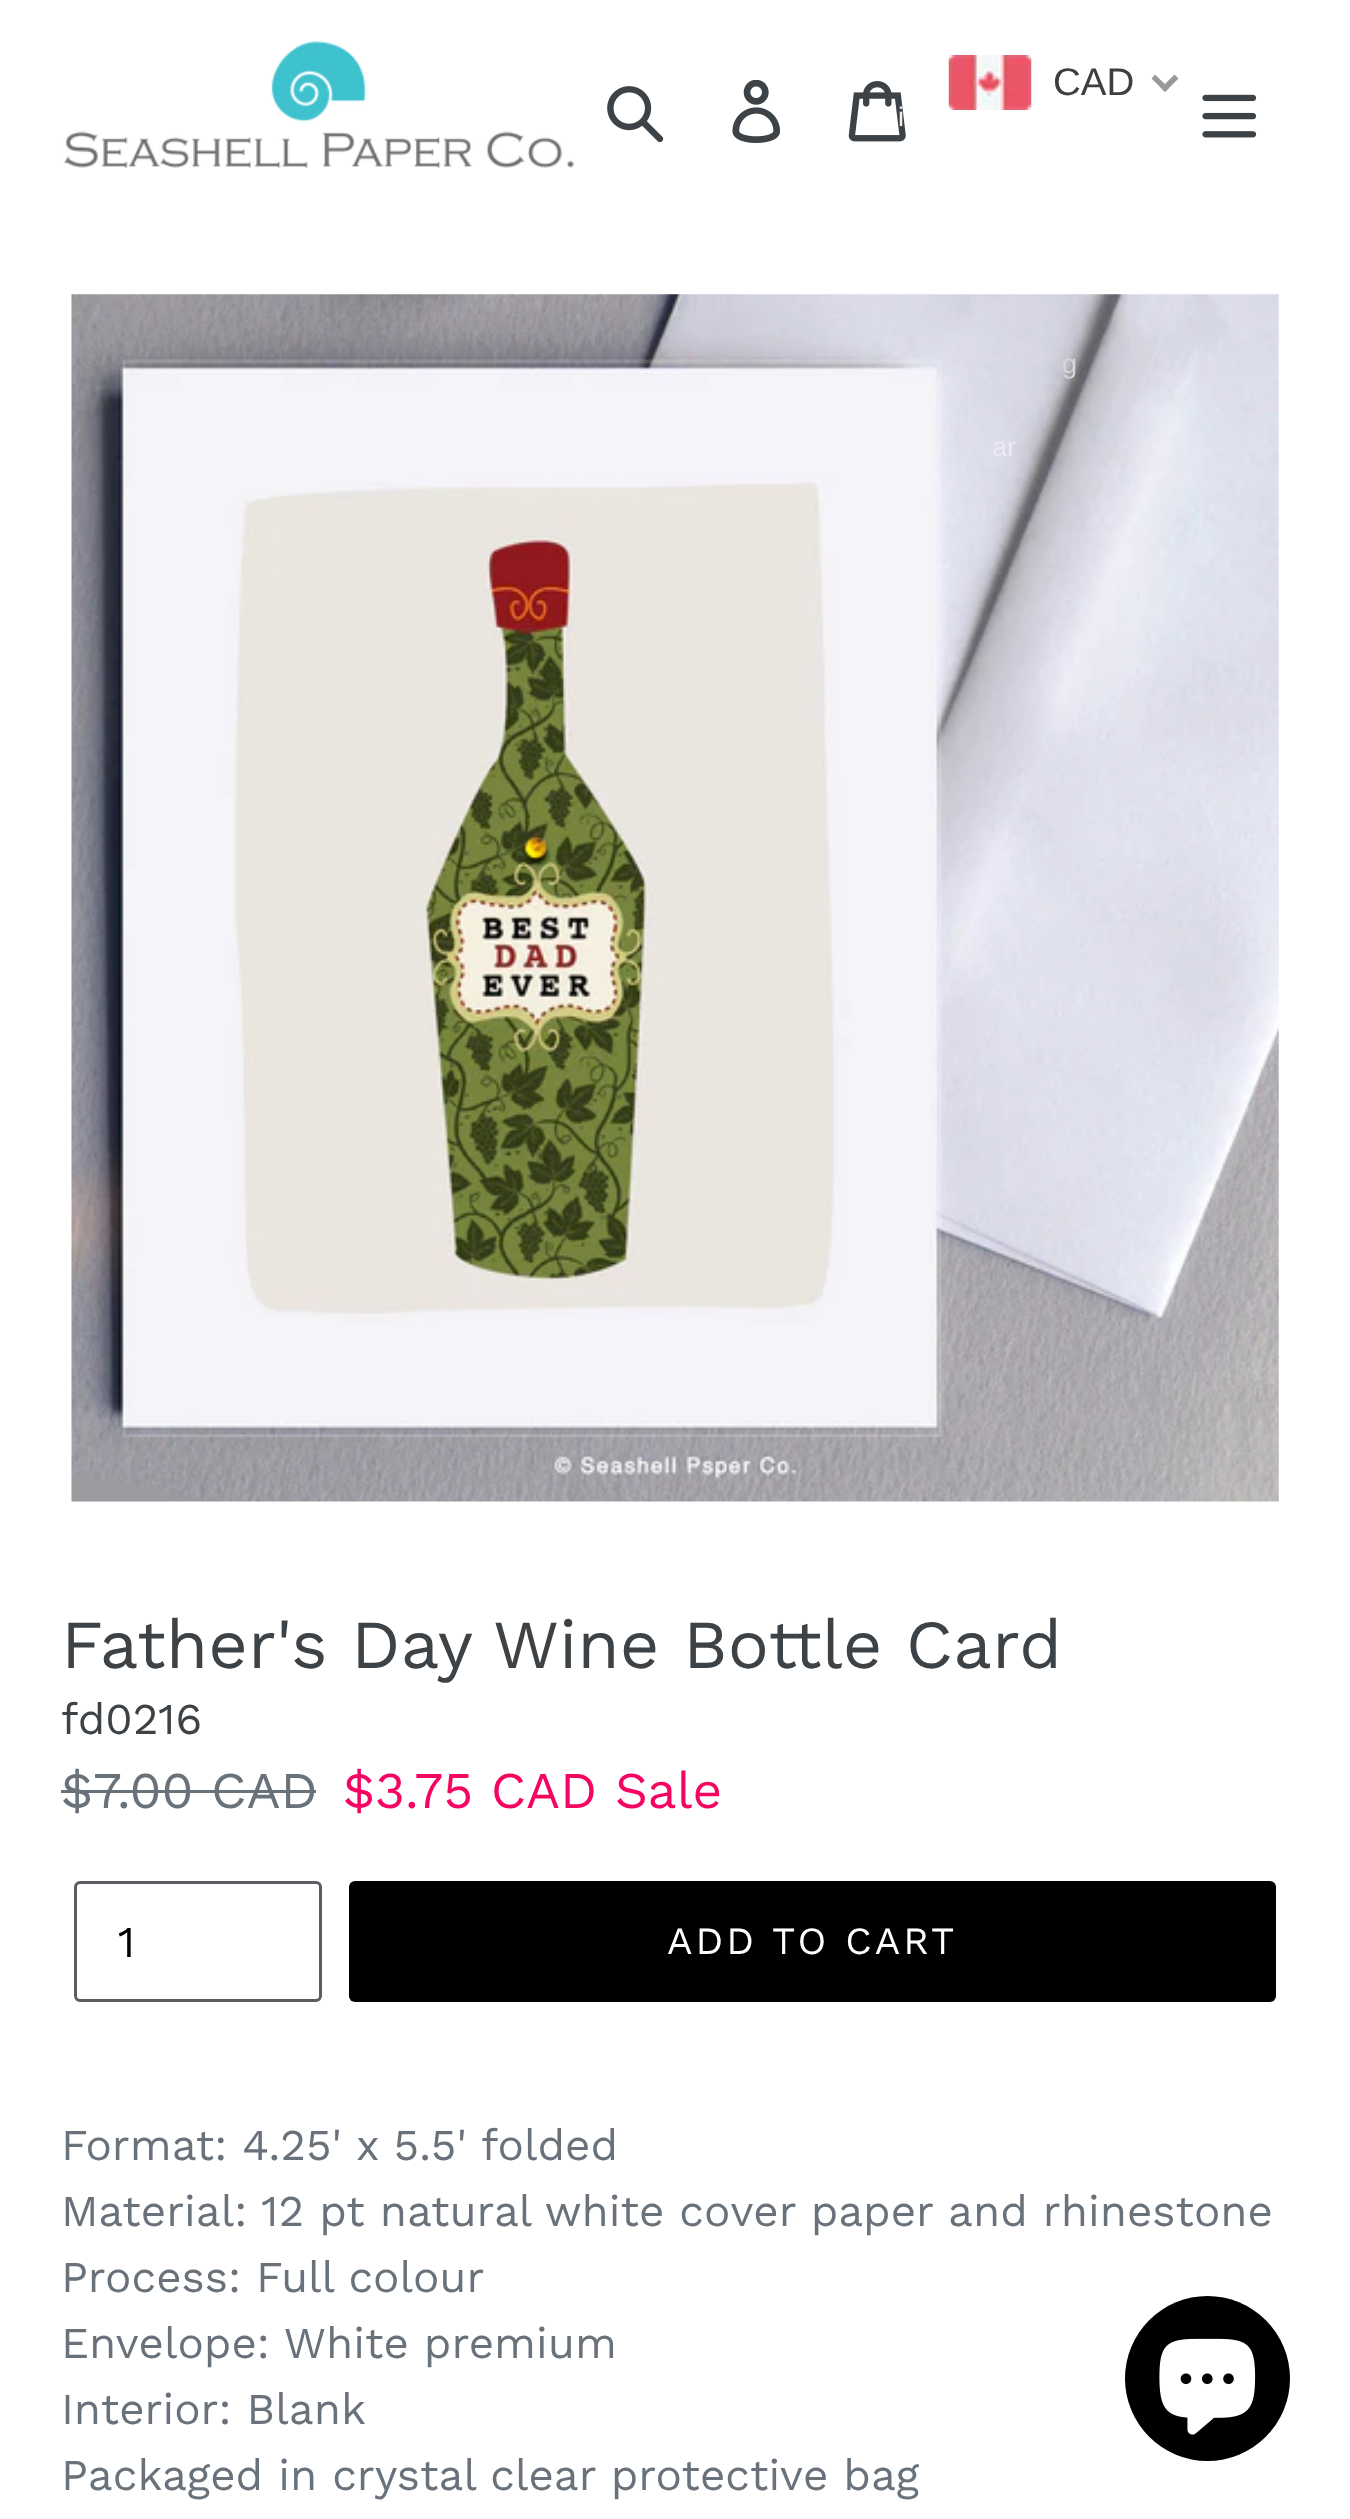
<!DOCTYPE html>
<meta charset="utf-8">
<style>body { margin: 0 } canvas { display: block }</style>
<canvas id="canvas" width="1350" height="2519"></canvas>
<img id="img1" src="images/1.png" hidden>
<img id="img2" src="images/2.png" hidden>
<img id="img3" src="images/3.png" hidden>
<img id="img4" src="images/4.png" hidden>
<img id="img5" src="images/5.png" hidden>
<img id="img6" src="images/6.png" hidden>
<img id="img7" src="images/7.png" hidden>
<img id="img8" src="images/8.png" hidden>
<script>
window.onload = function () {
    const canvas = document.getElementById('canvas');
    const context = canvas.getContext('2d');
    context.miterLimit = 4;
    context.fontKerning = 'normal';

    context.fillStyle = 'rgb(255, 255, 255)';
    context.fillRect(0, 0, 1350, 2519);
    context.drawImage(document.getElementById('img1'), 63, 41, 511, 127);
    context.drawImage(document.getElementById('img2'), 607, 86, 57, 57);
    context.drawImage(document.getElementById('img3'), 732, 80, 48, 63);
    context.drawImage(document.getElementById('img4'), 848, 81, 58, 61);
    context.drawImage(document.getElementById('img5'), 948, 55, 84, 55);
    context.fillStyle = 'rgb(153, 153, 153)';
    context.beginPath();
    context.moveTo(1174.5, 74.5);
    context.lineTo(1178.5, 78.5);
    context.lineTo(1165, 92);
    context.lineTo(1161, 88);
    context.closePath();
    context.fill();
    context.beginPath();
    context.moveTo(1155, 74.5);
    context.lineTo(1169, 88);
    context.lineTo(1165, 92);
    context.lineTo(1151.5, 78.5);
    context.closePath();
    context.fill();
    context.drawImage(document.getElementById('img6'), 1202, 94, 55, 44);
    context.drawImage(document.getElementById('img7'), 71, 294, 1208, 1208);
    context.fillStyle = 'rgb(105, 114, 123)';
    context.fillRect(61, 1790, 255, 3);
    context.beginPath();
    context.roundRect(75.5, 1882.5, 245, 118, 4.5);
    context.strokeStyle = 'rgb(90, 94, 98)';
    context.lineWidth = 3;
    context.stroke();
    context.fillStyle = 'rgb(0, 0, 0)';
    context.beginPath();
    context.roundRect(349, 1881, 927, 121, 6);
    context.fill();
    context.beginPath();
    context.arc(1207.5, 2378.5, 82.5, 0, 2 * Math.PI);
    context.fill();
    context.drawImage(document.getElementById('img8'), 1159, 2338, 97, 97);
    context.font = '38.5px Liberation Sans';
    context.fillStyle = 'rgb(64, 63, 63)';
    context.fillText('CAD', 1053, 95);
    context.font = '27px Liberation Sans';
    context.fillStyle = 'rgb(241, 241, 241)';
    context.fillText('i', 898, 126);
    context.fillStyle = 'rgb(213, 213, 223)';
    context.fillText('g', 1062, 373);
    context.fillStyle = 'rgb(236, 235, 244)';
    context.fillText('ar', 992, 456);
    context.font = '68.75px Work Sans';
    context.fillStyle = 'rgb(61, 66, 70)';
    context.fillText('Father\'s Day Wine Bottle Card', 61, 1668);
    context.font = '44px Work Sans';
    context.fillText('fd0216', 61, 1734);
    context.font = '51.5px Work Sans';
    context.fillStyle = 'rgb(105, 114, 123)';
    context.fillText('$7.00 CAD', 61, 1808);
    context.fillStyle = 'rgb(245, 4, 98)';
    context.fillText('$3.75 CAD', 343, 1808);
    context.fillText('Sale', 615, 1808);
    context.font = '44px Work Sans';
    context.fillStyle = 'rgb(0, 0, 0)';
    context.fillText('1', 118, 1957);
    context.letterSpacing = '3px';
    context.font = '38.5px Work Sans';
    context.fillStyle = 'rgb(255, 255, 255)';
    context.fillText('ADD TO CART', 667, 1954);
    context.letterSpacing = '0px';
    context.font = '44px Work Sans';
    context.fillStyle = 'rgb(105, 114, 123)';
    context.fillText('Format: 4.25\' x 5.5\' folded', 61, 2160);
    context.fillText('Material: 12 pt natural white cover paper and rhinestone', 61, 2226);
    context.fillText('Process: Full colour', 61, 2292);
    context.fillText('Envelope: White premium', 61, 2358);
    context.fillText('Interior: Blank', 61, 2424);
    context.fillText('Packaged in crystal clear protective bag', 61, 2490);
};
</script>
